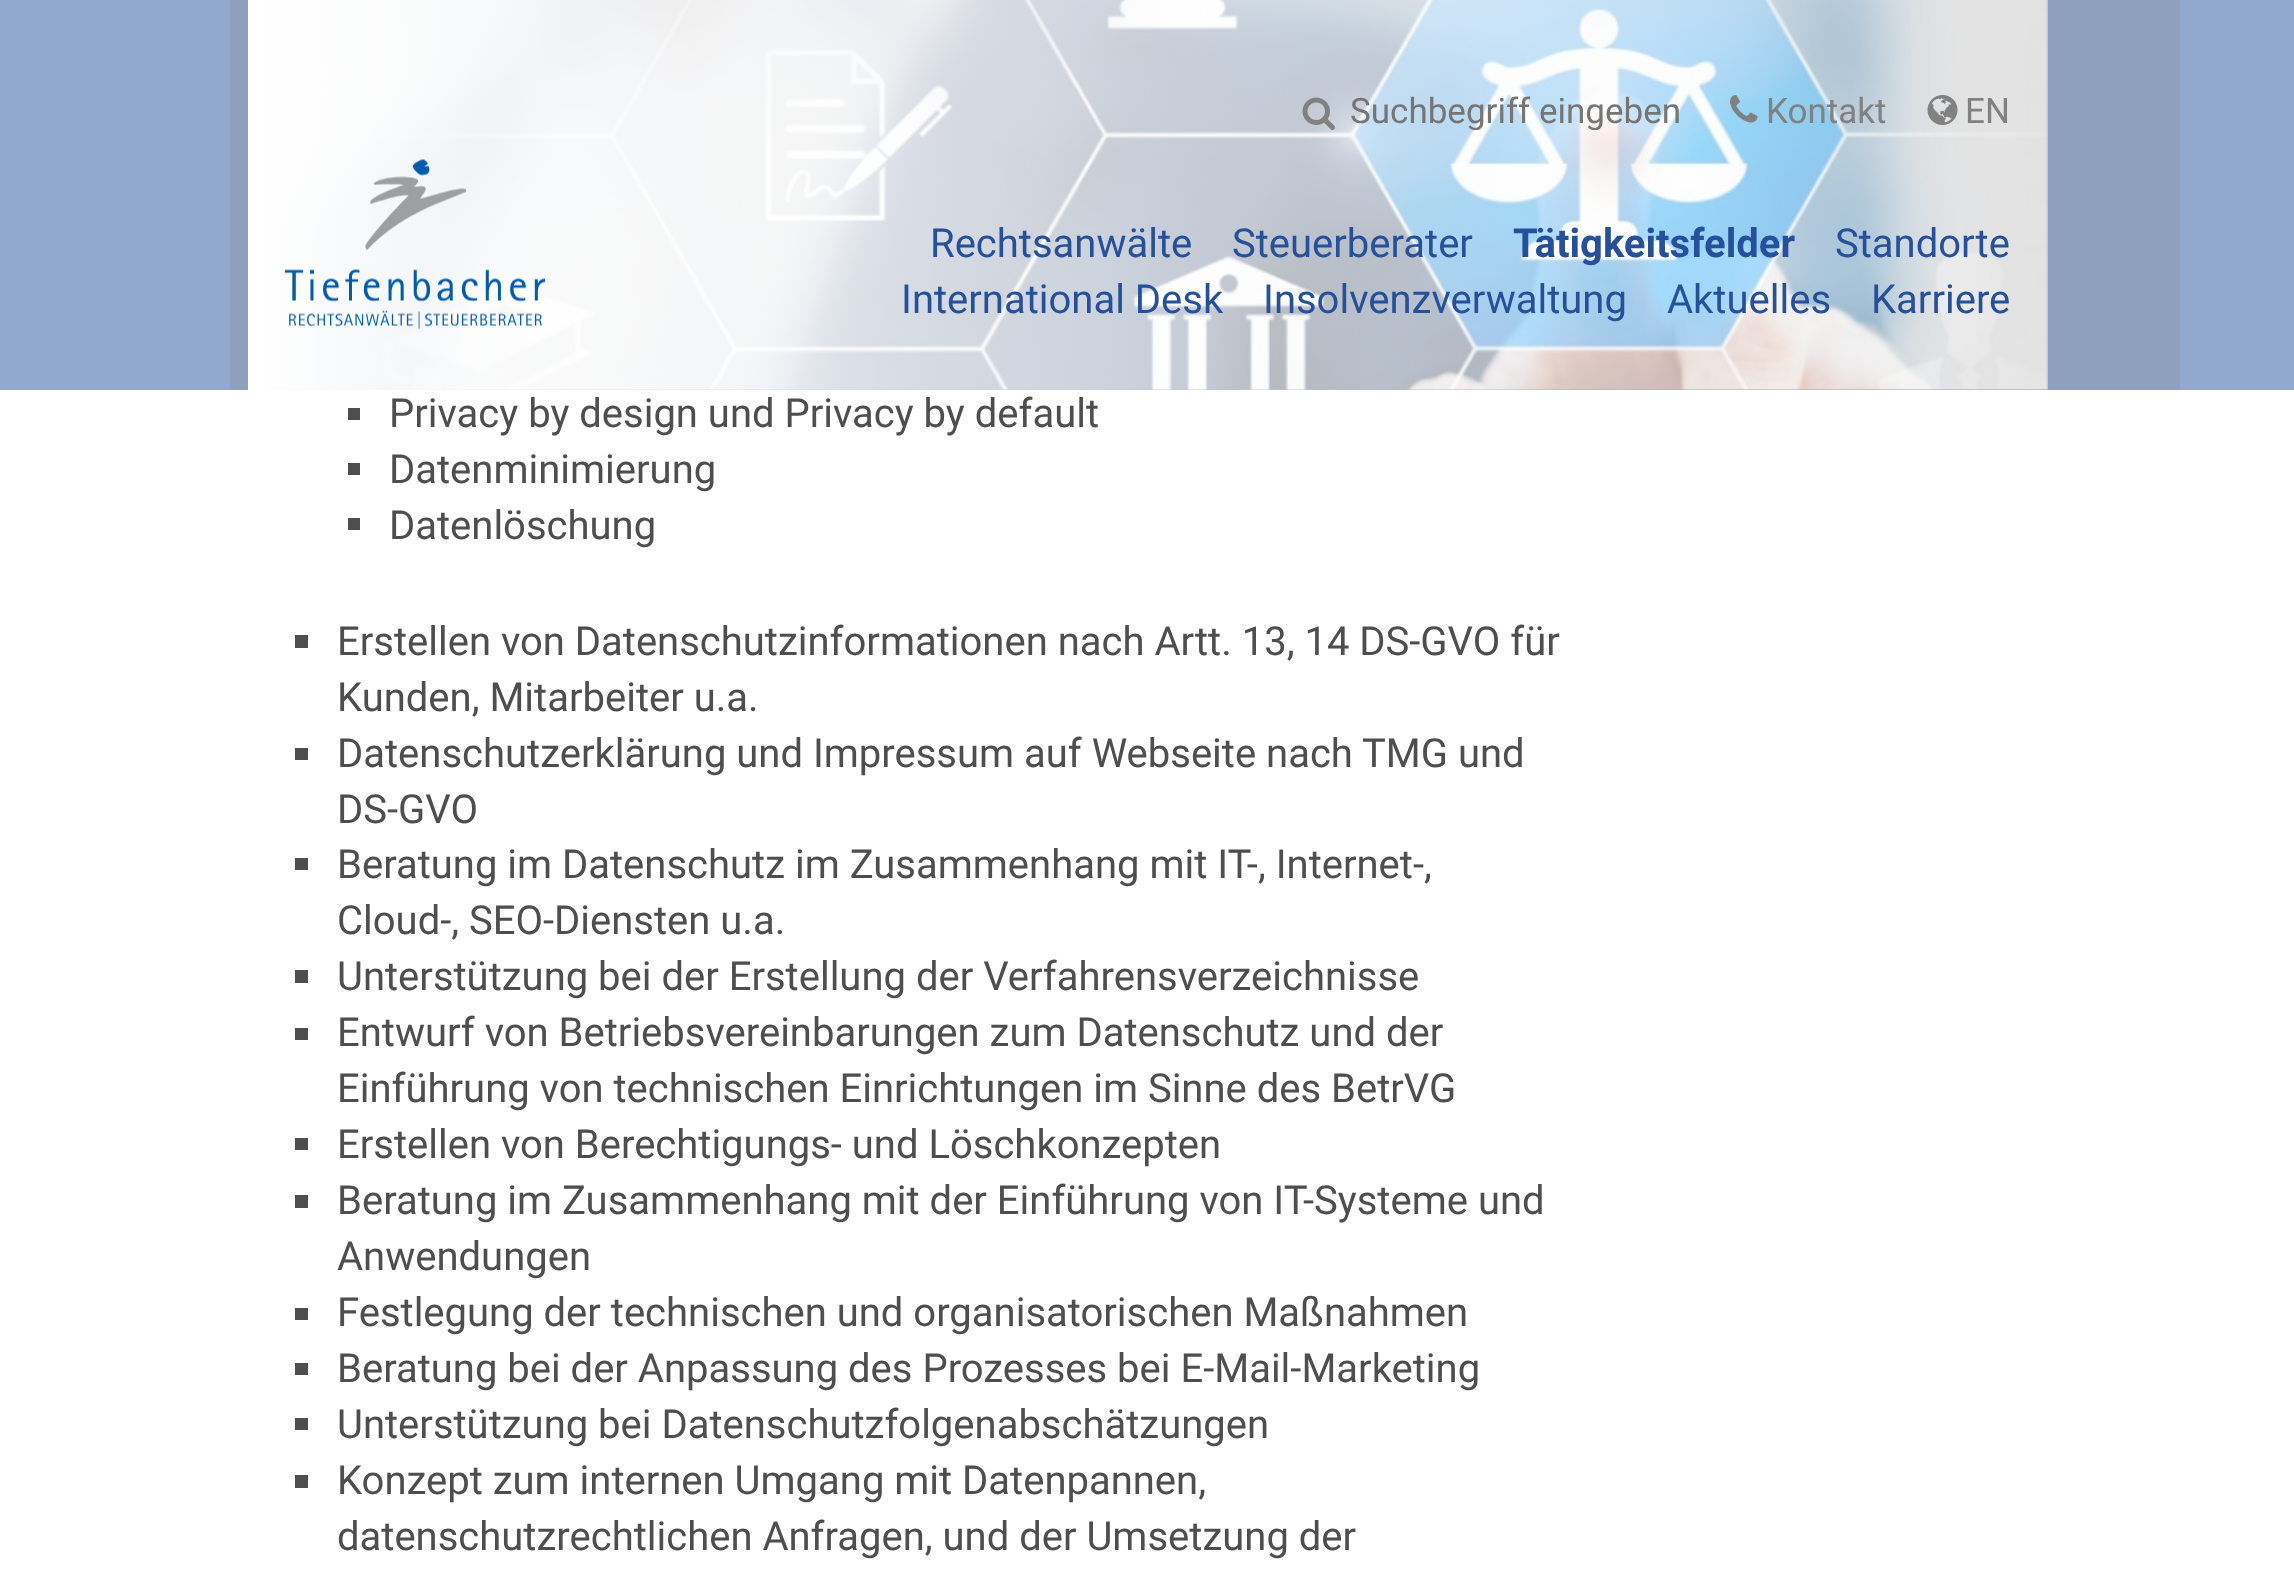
<!DOCTYPE html>
<meta charset="utf-8">
<style>body { margin: 0 } canvas { display: block }</style>
<canvas id="canvas" width="2294" height="1575"></canvas>
<img id="img1" src="images/1.png" hidden>
<img id="img2" src="images/2.png" hidden>
<img id="img3" src="images/3.png" hidden>
<img id="img4" src="images/4.png" hidden>
<img id="img5" src="images/5.png" hidden>
<script>
window.onload = function () {
    const canvas = document.getElementById('canvas');
    const context = canvas.getContext('2d');
    context.miterLimit = 4;
    context.fontKerning = 'normal';
    let gradient;

    context.fillStyle = 'rgb(255, 255, 255)';
    context.fillRect(0, 0, 2294, 1575);
    context.fillStyle = 'rgb(147, 168, 205)';
    context.fillRect(0, 0, 230, 390);
    context.fillStyle = 'rgb(143, 160, 190)';
    context.fillRect(230, 0, 1950, 390);
    context.fillStyle = 'rgb(147, 168, 205)';
    context.fillRect(2180, 0, 114, 390);
    context.fillStyle = 'rgb(25, 51, 99)';
    context.fillRect(269, 0, 1779, 390);
    context.drawImage(document.getElementById('img1'), 269, 0, 1779, 390);
    gradient = context.createLinearGradient(248, 203, 2048, 202);
    gradient.addColorStop(0, 'rgb(255, 255, 255)');
    gradient.addColorStop(1, 'rgba(255, 255, 255, 0.5)');
    context.fillStyle = gradient;
    context.fillRect(248, 0, 1800, 390);
    context.drawImage(document.getElementById('img2'), 285, 159, 260, 171);
    context.drawImage(document.getElementById('img3'), 1302, 97, 33, 33);
    context.drawImage(document.getElementById('img4'), 1730, 95, 28, 28);
    context.drawImage(document.getElementById('img5'), 1927, 95, 31, 30);
    context.fillStyle = 'rgb(78, 78, 78)';
    context.fillRect(348, 408, 12, 12);
    context.fillRect(348, 463, 12, 12);
    context.fillRect(348, 518, 12, 12);
    context.fillRect(295, 635, 13, 13);
    context.fillRect(295, 748, 13, 12);
    context.fillRect(295, 858, 13, 12);
    context.fillRect(295, 970, 13, 13);
    context.fillRect(295, 1028, 13, 12);
    context.fillRect(295, 1138, 13, 12);
    context.fillRect(295, 1195, 13, 13);
    context.fillRect(295, 1308, 13, 12);
    context.fillRect(295, 1363, 13, 12);
    context.fillRect(295, 1418, 13, 12);
    context.fillRect(295, 1475, 13, 13);
    context.save();
    context.beginPath();
    context.rect(1350, 90, 340, 40);
    context.clip();
    context.font = '35px Roboto';
    context.fillStyle = 'rgb(117, 117, 117)';
    context.fillText('Suchbegriff eingeben', 1350, 123);
    context.restore();
    context.font = '35px Roboto';
    context.fillStyle = 'rgb(129, 129, 129)';
    context.fillText('Kontakt', 1766, 123);
    context.fillText('EN', 1965, 123);
    context.font = '40px Roboto';
    context.fillStyle = 'rgb(39, 80, 155)';
    context.fillText('Rechtsanwälte', 930, 257);
    context.fillText('Steuerberater', 1232, 257);
    context.font = 'bold 40px Roboto';
    context.fillText('Tätigkeitsfelder', 1513, 257);
    context.font = '40px Roboto';
    context.fillText('Standorte', 1835, 257);
    context.fillText('International Desk', 901, 313);
    context.fillText('Insolvenzverwaltung', 1263, 313);
    context.fillText('Aktuelles', 1667, 313);
    context.fillText('Karriere', 1871, 313);
    context.fillStyle = 'rgb(78, 78, 78)';
    context.fillText('Privacy by design und Privacy by default', 389, 427);
    context.fillText('Datenminimierung', 389, 483);
    context.fillText('Datenlöschung', 389, 539);
    context.fillText('Erstellen von Datenschutzinformationen nach Artt. 13, 14 DS-GVO für', 337, 655);
    context.fillText('Kunden, Mitarbeiter u.a.', 337, 711);
    context.fillText('Datenschutzerklärung und Impressum auf Webseite nach TMG und', 337, 767);
    context.fillText('DS-GVO', 337, 823);
    context.fillText('Beratung im Datenschutz im Zusammenhang mit IT-, Internet-,', 337, 878);
    context.fillText('Cloud-, SEO-Diensten u.a.', 337, 934);
    context.fillText('Unterstützung bei der Erstellung der Verfahrensverzeichnisse', 337, 990);
    context.fillText('Entwurf von Betriebsvereinbarungen zum Datenschutz und der', 337, 1046);
    context.fillText('Einführung von technischen Einrichtungen im Sinne des BetrVG', 337, 1102);
    context.fillText('Erstellen von Berechtigungs- und Löschkonzepten', 337, 1158);
    context.fillText('Beratung im Zusammenhang mit der Einführung von IT-Systeme und', 337, 1214);
    context.fillText('Anwendungen', 337, 1270);
    context.fillText('Festlegung der technischen und organisatorischen Maßnahmen', 337, 1326);
    context.fillText('Beratung bei der Anpassung des Prozesses bei E-Mail-Marketing', 337, 1382);
    context.fillText('Unterstützung bei Datenschutzfolgenabschätzungen', 337, 1438);
    context.fillText('Konzept zum internen Umgang mit Datenpannen,', 337, 1494);
    context.fillText('datenschutzrechtlichen Anfragen, und der Umsetzung der', 337, 1550);
};
</script>
